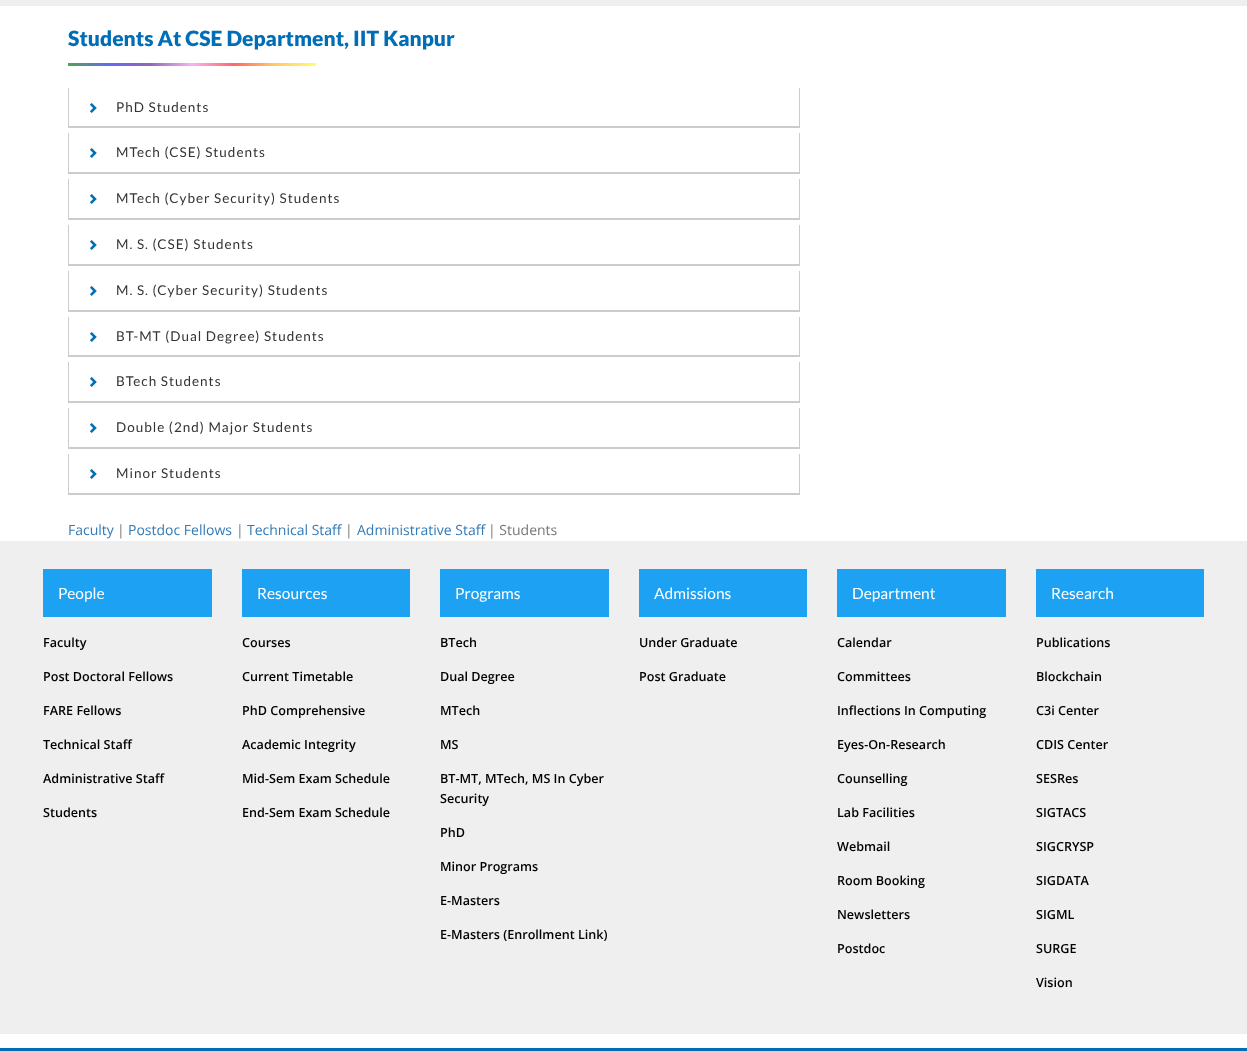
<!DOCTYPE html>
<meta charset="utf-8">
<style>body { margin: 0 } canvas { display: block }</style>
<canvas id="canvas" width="1247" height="1051"></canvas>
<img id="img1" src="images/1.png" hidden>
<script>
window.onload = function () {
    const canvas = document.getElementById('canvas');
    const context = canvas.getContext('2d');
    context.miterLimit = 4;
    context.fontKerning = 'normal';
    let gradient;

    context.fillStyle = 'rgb(255, 255, 255)';
    context.fillRect(0, 0, 1247, 1051);
    context.fillStyle = 'rgb(239, 239, 239)';
    context.fillRect(0, 0, 1247, 6);
    gradient = context.createLinearGradient(68, 65, 316, 64);
    gradient.addColorStop(0, 'rgb(77, 166, 77)');
    gradient.addColorStop(0.17, 'rgb(102, 102, 255)');
    gradient.addColorStop(0.33, 'rgb(147, 102, 180)');
    gradient.addColorStop(0.5, 'rgb(245, 180, 245)');
    gradient.addColorStop(0.67, 'rgb(255, 102, 102)');
    gradient.addColorStop(0.83, 'rgb(255, 201, 102)');
    gradient.addColorStop(1, 'rgb(255, 255, 102)');
    context.fillStyle = gradient;
    context.fillRect(68, 63, 248, 3);
    context.fillStyle = 'rgba(0, 0, 0, 0.05)';
    context.filter = 'blur(0.5px)';
    context.beginPath();
    context.roundRect(68, 88, 732, 40, 4);
    context.fill();
    context.filter = 'none';
    context.beginPath();
    context.roundRect(68.5, 87.5, 731, 39, 3.5);
    context.strokeStyle = 'rgb(255, 255, 255)';
    context.stroke();
    context.fillStyle = 'rgb(204, 204, 204)';
    context.filter = 'blur(0.5px)';
    context.beginPath();
    context.rect(68, 88, 732, 40);
    context.fill();
    context.filter = 'none';
    context.fillStyle = 'rgb(255, 255, 255)';
    context.fillRect(69, 88, 730, 38);
    context.drawImage(document.getElementById('img1'), 90, 103, 7, 10);
    context.fillStyle = 'rgba(0, 0, 0, 0.05)';
    context.filter = 'blur(0.5px)';
    context.beginPath();
    context.roundRect(68, 133, 732, 41, 4);
    context.fill();
    context.filter = 'none';
    context.beginPath();
    context.roundRect(68.5, 132.5, 731, 40, 3.5);
    context.stroke();
    context.fillStyle = 'rgb(204, 204, 204)';
    context.filter = 'blur(0.5px)';
    context.beginPath();
    context.rect(68, 133, 732, 41);
    context.fill();
    context.filter = 'none';
    context.fillStyle = 'rgb(255, 255, 255)';
    context.fillRect(69, 133, 730, 39);
    context.drawImage(document.getElementById('img1'), 90, 148, 7, 10);
    context.fillStyle = 'rgba(0, 0, 0, 0.05)';
    context.filter = 'blur(0.5px)';
    context.beginPath();
    context.roundRect(68, 179, 732, 41, 4);
    context.fill();
    context.filter = 'none';
    context.beginPath();
    context.roundRect(68.5, 178.5, 731, 40, 3.5);
    context.stroke();
    context.fillStyle = 'rgb(204, 204, 204)';
    context.filter = 'blur(0.5px)';
    context.beginPath();
    context.rect(68, 179, 732, 41);
    context.fill();
    context.filter = 'none';
    context.fillStyle = 'rgb(255, 255, 255)';
    context.fillRect(69, 179, 730, 39);
    context.drawImage(document.getElementById('img1'), 90, 194, 7, 10);
    context.fillStyle = 'rgba(0, 0, 0, 0.05)';
    context.filter = 'blur(0.5px)';
    context.beginPath();
    context.roundRect(68, 225, 732, 41, 4);
    context.fill();
    context.filter = 'none';
    context.beginPath();
    context.roundRect(68.5, 224.5, 731, 40, 3.5);
    context.stroke();
    context.fillStyle = 'rgb(204, 204, 204)';
    context.filter = 'blur(0.5px)';
    context.beginPath();
    context.rect(68, 225, 732, 41);
    context.fill();
    context.filter = 'none';
    context.fillStyle = 'rgb(255, 255, 255)';
    context.fillRect(69, 225, 730, 39);
    context.drawImage(document.getElementById('img1'), 90, 240, 7, 10);
    context.fillStyle = 'rgba(0, 0, 0, 0.05)';
    context.filter = 'blur(0.5px)';
    context.beginPath();
    context.roundRect(68, 271, 732, 41, 4);
    context.fill();
    context.filter = 'none';
    context.beginPath();
    context.roundRect(68.5, 270.5, 731, 40, 3.5);
    context.stroke();
    context.fillStyle = 'rgb(204, 204, 204)';
    context.filter = 'blur(0.5px)';
    context.beginPath();
    context.rect(68, 271, 732, 41);
    context.fill();
    context.filter = 'none';
    context.fillStyle = 'rgb(255, 255, 255)';
    context.fillRect(69, 271, 730, 39);
    context.drawImage(document.getElementById('img1'), 90, 286, 7, 10);
    context.fillStyle = 'rgba(0, 0, 0, 0.05)';
    context.filter = 'blur(0.5px)';
    context.beginPath();
    context.roundRect(68, 317, 732, 40, 4);
    context.fill();
    context.filter = 'none';
    context.beginPath();
    context.roundRect(68.5, 316.5, 731, 39, 3.5);
    context.stroke();
    context.fillStyle = 'rgb(204, 204, 204)';
    context.filter = 'blur(0.5px)';
    context.beginPath();
    context.rect(68, 317, 732, 40);
    context.fill();
    context.filter = 'none';
    context.fillStyle = 'rgb(255, 255, 255)';
    context.fillRect(69, 317, 730, 38);
    context.drawImage(document.getElementById('img1'), 90, 332, 7, 10);
    context.fillStyle = 'rgba(0, 0, 0, 0.05)';
    context.filter = 'blur(0.5px)';
    context.beginPath();
    context.roundRect(68, 362, 732, 41, 4);
    context.fill();
    context.filter = 'none';
    context.beginPath();
    context.roundRect(68.5, 361.5, 731, 40, 3.5);
    context.stroke();
    context.fillStyle = 'rgb(204, 204, 204)';
    context.filter = 'blur(0.5px)';
    context.beginPath();
    context.rect(68, 362, 732, 41);
    context.fill();
    context.filter = 'none';
    context.fillStyle = 'rgb(255, 255, 255)';
    context.fillRect(69, 362, 730, 39);
    context.drawImage(document.getElementById('img1'), 90, 377, 7, 10);
    context.fillStyle = 'rgba(0, 0, 0, 0.05)';
    context.filter = 'blur(0.5px)';
    context.beginPath();
    context.roundRect(68, 408, 732, 41, 4);
    context.fill();
    context.filter = 'none';
    context.beginPath();
    context.roundRect(68.5, 407.5, 731, 40, 3.5);
    context.stroke();
    context.fillStyle = 'rgb(204, 204, 204)';
    context.filter = 'blur(0.5px)';
    context.beginPath();
    context.rect(68, 408, 732, 41);
    context.fill();
    context.filter = 'none';
    context.fillStyle = 'rgb(255, 255, 255)';
    context.fillRect(69, 408, 730, 39);
    context.drawImage(document.getElementById('img1'), 90, 423, 7, 10);
    context.fillStyle = 'rgba(0, 0, 0, 0.05)';
    context.filter = 'blur(0.5px)';
    context.beginPath();
    context.roundRect(68, 454, 732, 41, 4);
    context.fill();
    context.filter = 'none';
    context.beginPath();
    context.roundRect(68.5, 453.5, 731, 40, 3.5);
    context.stroke();
    context.fillStyle = 'rgb(204, 204, 204)';
    context.filter = 'blur(0.5px)';
    context.beginPath();
    context.rect(68, 454, 732, 41);
    context.fill();
    context.filter = 'none';
    context.fillStyle = 'rgb(255, 255, 255)';
    context.fillRect(69, 454, 730, 39);
    context.drawImage(document.getElementById('img1'), 90, 469, 7, 10);
    context.fillStyle = 'rgb(239, 239, 239)';
    context.fillRect(0, 541, 1247, 493);
    context.fillStyle = 'rgb(29, 161, 242)';
    context.fillRect(43, 569, 169, 48);
    context.fillRect(242, 569, 168, 48);
    context.fillRect(440, 569, 169, 48);
    context.fillRect(639, 569, 168, 48);
    context.fillRect(837, 569, 169, 48);
    context.fillRect(1036, 569, 168, 48);
    context.fillStyle = 'rgb(0, 110, 183)';
    context.fillRect(0, 1048, 1247, 3);
    context.font = '900 21px Lato';
    context.fillText('Students At CSE Department, IIT Kanpur', 68, 46);
    context.letterSpacing = '1px';
    context.font = '13.5px Lato';
    context.fillStyle = 'rgb(51, 51, 51)';
    context.fillText('PhD Students', 116, 112);
    context.fillText('MTech (CSE) Students', 116, 157);
    context.fillText('MTech (Cyber Security) Students', 116, 203);
    context.fillText('M. S. (CSE) Students', 116, 249);
    context.fillText('M. S. (Cyber Security) Students', 116, 295);
    context.fillText('BT-MT (Dual Degree) Students', 116, 341);
    context.fillText('BTech Students', 116, 386);
    context.fillText('Double (2nd) Major Students', 116, 432);
    context.fillText('Minor Students', 116, 478);
    context.letterSpacing = '0px';
    context.font = '14px Open Sans';
    context.fillStyle = 'rgb(51, 122, 183)';
    context.fillText('Faculty', 68, 535);
    context.fillStyle = 'rgb(119, 119, 119)';
    context.fillText('|', 117, 535);
    context.fillStyle = 'rgb(51, 122, 183)';
    context.fillText('Postdoc Fellows', 128, 535);
    context.fillStyle = 'rgb(119, 119, 119)';
    context.fillText('|', 236, 535);
    context.fillStyle = 'rgb(51, 122, 183)';
    context.fillText('Technical Staff', 247, 535);
    context.fillStyle = 'rgb(119, 119, 119)';
    context.fillText('|', 345, 535);
    context.fillStyle = 'rgb(51, 122, 183)';
    context.fillText('Administrative Staff', 357, 535);
    context.fillStyle = 'rgb(119, 119, 119)';
    context.fillText('| Students', 488, 535);
    context.font = '15.5px Lato';
    context.fillStyle = 'rgb(255, 255, 255)';
    context.fillText('People', 58, 599);
    context.font = '600 12.6px Open Sans';
    context.fillStyle = 'rgb(0, 0, 0)';
    context.fillText('Faculty', 43, 647);
    context.fillText('Post Doctoral Fellows', 43, 681);
    context.fillText('FARE Fellows', 43, 715);
    context.fillText('Technical Staff', 43, 749);
    context.fillText('Administrative Staff', 43, 783);
    context.fillText('Students', 43, 817);
    context.font = '15.5px Lato';
    context.fillStyle = 'rgb(255, 255, 255)';
    context.fillText('Resources', 257, 599);
    context.font = '600 12.6px Open Sans';
    context.fillStyle = 'rgb(0, 0, 0)';
    context.fillText('Courses', 242, 647);
    context.fillText('Current Timetable', 242, 681);
    context.fillText('PhD Comprehensive', 242, 715);
    context.fillText('Academic Integrity', 242, 749);
    context.fillText('Mid-Sem Exam Schedule', 242, 783);
    context.fillText('End-Sem Exam Schedule', 242, 817);
    context.font = '15.5px Lato';
    context.fillStyle = 'rgb(255, 255, 255)';
    context.fillText('Programs', 455, 599);
    context.font = '600 12.6px Open Sans';
    context.fillStyle = 'rgb(0, 0, 0)';
    context.fillText('BTech', 440, 647);
    context.fillText('Dual Degree', 440, 681);
    context.fillText('MTech', 440, 715);
    context.fillText('MS', 440, 749);
    context.fillText('BT-MT, MTech, MS In Cyber', 440, 783);
    context.fillText('Security', 440, 803);
    context.fillText('PhD', 440, 837);
    context.fillText('Minor Programs', 440, 871);
    context.fillText('E-Masters', 440, 905);
    context.fillText('E-Masters (Enrollment Link)', 440, 939);
    context.font = '15.5px Lato';
    context.fillStyle = 'rgb(255, 255, 255)';
    context.fillText('Admissions', 654, 599);
    context.font = '600 12.6px Open Sans';
    context.fillStyle = 'rgb(0, 0, 0)';
    context.fillText('Under Graduate', 639, 647);
    context.fillText('Post Graduate', 639, 681);
    context.font = '15.5px Lato';
    context.fillStyle = 'rgb(255, 255, 255)';
    context.fillText('Department', 852, 599);
    context.font = '600 12.6px Open Sans';
    context.fillStyle = 'rgb(0, 0, 0)';
    context.fillText('Calendar', 837, 647);
    context.fillText('Committees', 837, 681);
    context.fillText('Inflections In Computing', 837, 715);
    context.fillText('Eyes-On-Research', 837, 749);
    context.fillText('Counselling', 837, 783);
    context.fillText('Lab Facilities', 837, 817);
    context.fillText('Webmail', 837, 851);
    context.fillText('Room Booking', 837, 885);
    context.fillText('Newsletters', 837, 919);
    context.fillText('Postdoc', 837, 953);
    context.font = '15.5px Lato';
    context.fillStyle = 'rgb(255, 255, 255)';
    context.fillText('Research', 1051, 599);
    context.font = '600 12.6px Open Sans';
    context.fillStyle = 'rgb(0, 0, 0)';
    context.fillText('Publications', 1036, 647);
    context.fillText('Blockchain', 1036, 681);
    context.fillText('C3i Center', 1036, 715);
    context.fillText('CDIS Center', 1036, 749);
    context.fillText('SESRes', 1036, 783);
    context.fillText('SIGTACS', 1036, 817);
    context.fillText('SIGCRYSP', 1036, 851);
    context.fillText('SIGDATA', 1036, 885);
    context.fillText('SIGML', 1036, 919);
    context.fillText('SURGE', 1036, 953);
    context.fillText('Vision', 1036, 987);
};
</script>
